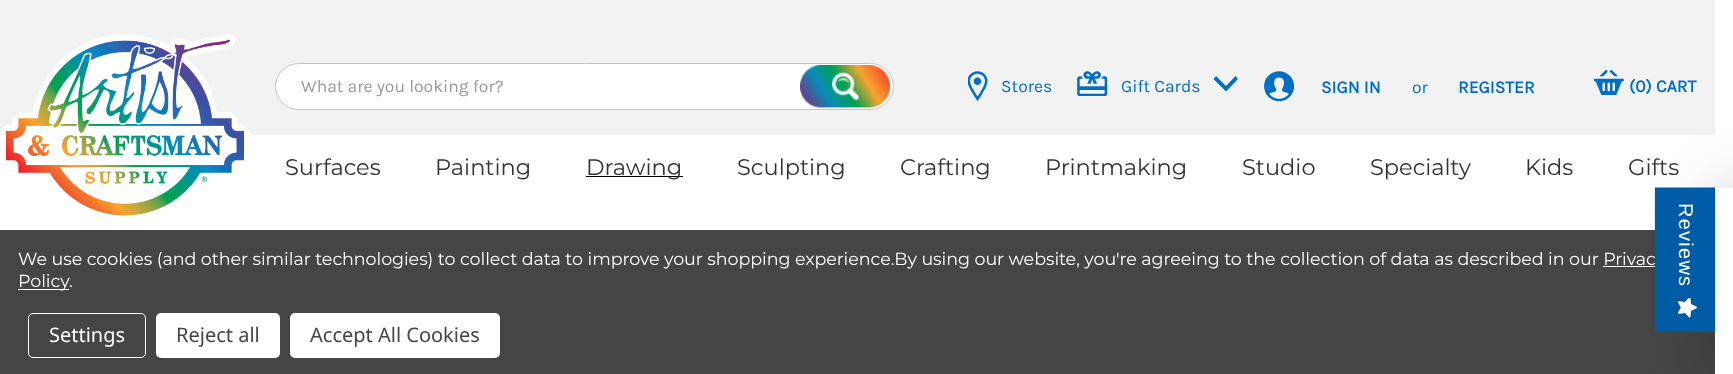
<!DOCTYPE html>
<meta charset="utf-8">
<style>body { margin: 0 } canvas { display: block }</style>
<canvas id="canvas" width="1733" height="374"></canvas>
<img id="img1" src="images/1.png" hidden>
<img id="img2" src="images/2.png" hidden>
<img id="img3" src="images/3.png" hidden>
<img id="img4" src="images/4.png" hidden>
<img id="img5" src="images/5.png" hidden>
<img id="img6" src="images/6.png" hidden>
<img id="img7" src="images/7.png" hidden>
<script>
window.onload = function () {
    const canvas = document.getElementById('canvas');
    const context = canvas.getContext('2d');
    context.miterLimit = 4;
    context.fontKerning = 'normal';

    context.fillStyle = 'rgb(255, 255, 255)';
    context.fillRect(0, 0, 1733, 374);
    context.fillStyle = 'rgb(242, 242, 242)';
    context.fillRect(0, 0, 1715, 135);
    context.drawImage(document.getElementById('img1'), 0, 34, 250, 182);
    context.fillStyle = 'rgb(255, 255, 255)';
    context.beginPath();
    context.roundRect(275.5, 63.5, 618, 46, 23);
    context.fill();
    context.strokeStyle = 'rgb(197, 197, 197)';
    context.stroke();
    context.drawImage(document.getElementById('img2'), 800, 65, 91, 43);
    context.drawImage(document.getElementById('img3'), 968, 71, 20, 30);
    context.drawImage(document.getElementById('img4'), 1077, 71, 31, 25);
    context.fillStyle = 'rgb(0, 110, 199)';
    context.beginPath();
    context.moveTo(1216, 76);
    context.lineTo(1213.5, 79);
    context.lineTo(1226, 91.5);
    context.lineTo(1238, 79);
    context.lineTo(1235.5, 76);
    context.lineTo(1226, 86);
    context.closePath();
    context.fill();
    context.drawImage(document.getElementById('img5'), 1264, 71, 30, 30);
    context.drawImage(document.getElementById('img6'), 1594, 70, 30, 25);
    context.fillStyle = 'rgb(0, 0, 0)';
    context.fillRect(586, 176, 97, 1);
    context.fillStyle = 'rgb(69, 69, 69)';
    context.fillRect(0, 230, 1715, 144);
    context.fillStyle = 'rgb(255, 255, 255)';
    context.fillRect(1603, 266, 52, 1);
    context.fillRect(18, 289, 51, 1);
    context.beginPath();
    context.roundRect(28.5, 313.5, 117, 44, 4.5);
    context.strokeStyle = 'rgb(255, 255, 255)';
    context.stroke();
    context.beginPath();
    context.roundRect(156, 313, 124, 45, 5);
    context.fill();
    context.beginPath();
    context.roundRect(290, 313, 210, 45, 5);
    context.fill();
    context.save();
    context.beginPath();
    context.moveTo(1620, 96);
    context.lineTo(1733, 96);
    context.lineTo(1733, 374);
    context.lineTo(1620, 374);
    context.closePath();
    context.moveTo(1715, 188);
    context.lineTo(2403, 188);
    context.lineTo(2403, 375);
    context.lineTo(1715, 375);
    context.closePath();
    context.clip('evenodd');
    context.fillStyle = 'rgba(0, 0, 0, 0.2)';
    context.filter = 'blur(31px)';
    context.beginPath();
    context.rect(1714, 190, 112, 183);
    context.fill();
    context.filter = 'none';
    context.restore();
    context.fillStyle = 'rgb(0, 91, 165)';
    context.fillRect(1655, 188, 60, 144);
    context.font = '17.5px Karla';
    context.fillStyle = 'rgb(153, 153, 153)';
    context.fillText('What are you looking for?', 301, 92);
    context.fillStyle = 'rgb(0, 110, 199)';
    context.fillText('Stores', 1001, 92);
    context.fillText('Gift Cards', 1121, 92);
    context.font = 'bold 17.5px Karla';
    context.fillText('SIGN IN', 1321, 93);
    context.font = '17.5px Karla';
    context.fillText('or', 1412, 93);
    context.font = 'bold 17.5px Karla';
    context.fillText('REGISTER', 1458, 93);
    context.fillText('(0)', 1629, 92);
    context.fillText('CART', 1656, 92);
    context.font = '22.5px Montserrat';
    context.fillStyle = 'rgb(51, 51, 51)';
    context.fillText('Surfaces', 285, 175);
    context.fillText('Painting', 435, 175);
    context.fillText('Drawing', 586, 175);
    context.fillText('Sculpting', 737, 175);
    context.fillText('Crafting', 900, 175);
    context.fillText('Printmaking', 1045, 175);
    context.fillText('Studio', 1242, 175);
    context.fillText('Specialty', 1370, 175);
    context.fillText('Kids', 1525, 175);
    context.fillText('Gifts', 1628, 175);
    context.letterSpacing = '-0.06px';
    context.font = '17.5px Montserrat';
    context.fillStyle = 'rgb(255, 255, 255)';
    context.fillText('We use cookies (and other similar technologies) to collect data to improve your shopping experience.By using our website, you\'re agreeing to the collection of data as described in our Privac', 18, 265);
    context.fillText('Policy', 18, 287);
    context.fillText('.', 69, 287);
    context.letterSpacing = '0px';
    context.font = '20px Noto Sans';
    context.fillText('Settings', 49, 342);
    context.fillStyle = 'rgb(69, 69, 69)';
    context.fillText('Reject all', 176, 342);
    context.fillText('Accept All Cookies', 310, 342);
    context.beginPath();
    context.moveTo(1714.5, 188);
    context.lineTo(1714.5, 331);
    context.lineTo(1655.5, 331);
    context.lineTo(1655.5, 188);
    context.closePath();
    context.strokeStyle = 'rgb(0, 91, 165)';
    context.lineWidth = 1.2;
    context.stroke();
    context.letterSpacing = '1.25px';
    context.font = '20px Liberation Sans';
    context.fillStyle = 'rgb(255, 255, 255)';
    context.save();
    context.translate(1679, 203);
    context.rotate(90 * Math.PI / 180);
    context.fillText('Reviews', 0, 0);
    context.restore();
    context.drawImage(document.getElementById('img7'), 1678, 298, 19, 20);
};
</script>
